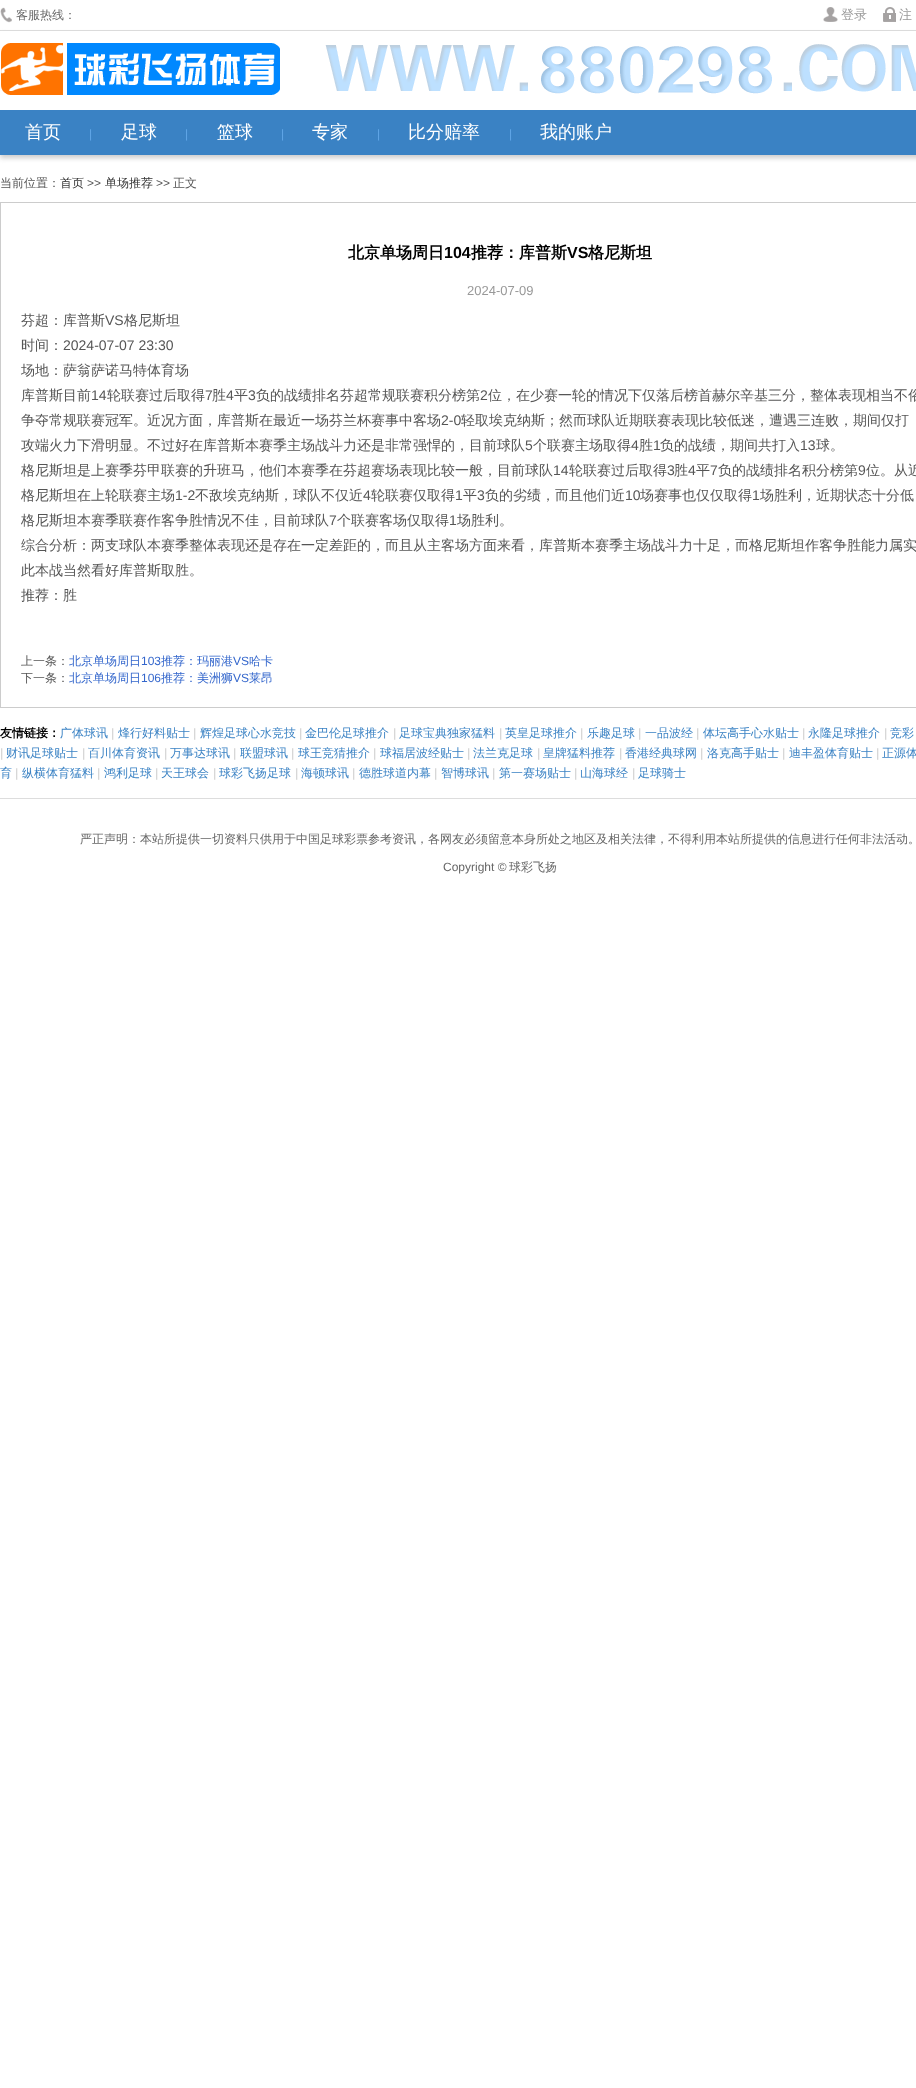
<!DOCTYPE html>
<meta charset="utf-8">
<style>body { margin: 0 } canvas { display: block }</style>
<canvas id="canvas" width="916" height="2088"></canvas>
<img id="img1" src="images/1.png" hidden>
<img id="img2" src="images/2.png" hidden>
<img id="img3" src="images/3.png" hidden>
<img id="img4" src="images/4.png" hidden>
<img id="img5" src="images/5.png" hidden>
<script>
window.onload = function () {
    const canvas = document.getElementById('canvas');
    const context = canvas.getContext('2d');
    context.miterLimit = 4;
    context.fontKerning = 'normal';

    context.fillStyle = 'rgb(255, 255, 255)';
    context.fillRect(0, 0, 916, 2088);
    context.fillStyle = 'rgb(221, 221, 221)';
    context.fillRect(0, 30, 916, 1);
    context.drawImage(document.getElementById('img1'), 0, 7, 12, 16);
    context.drawImage(document.getElementById('img2'), 823, 7, 15, 15);
    context.drawImage(document.getElementById('img3'), 883, 7, 13, 15);
    context.save();
    context.beginPath();
    context.moveTo(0, 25);
    context.lineTo(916, 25);
    context.lineTo(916, 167);
    context.lineTo(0, 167);
    context.closePath();
    context.moveTo(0, 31);
    context.lineTo(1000, 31);
    context.lineTo(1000, 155);
    context.lineTo(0, 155);
    context.closePath();
    context.clip('evenodd');
    context.fillStyle = 'rgb(204, 204, 204)';
    context.filter = 'blur(2.5px)';
    context.beginPath();
    context.rect(0, 34, 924, 124);
    context.fill();
    context.filter = 'none';
    context.restore();
    context.drawImage(document.getElementById('img4'), 325, 44, 591, 50);
    context.drawImage(document.getElementById('img5'), 1, 43, 279, 52);
    context.fillStyle = 'rgb(58, 130, 196)';
    context.fillRect(0, 110, 916, 45);
    context.strokeStyle = 'rgb(204, 204, 204)';
    context.strokeRect(0.5, 202.5, 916, 505);
    context.fillStyle = 'rgb(221, 221, 221)';
    context.fillRect(0, 798, 916, 1);
    context.font = '500 12px WenQuanYi Zen Hei';
    context.fillStyle = 'rgb(102, 102, 102)';
    context.fillText('客服热线：', 16, 19);
    context.font = '500 13px WenQuanYi Zen Hei';
    context.fillStyle = 'rgb(153, 153, 153)';
    context.fillText('登录', 841, 19);
    context.fillText('注', 899, 19);
    context.font = '500 18px WenQuanYi Zen Hei';
    context.fillStyle = 'rgb(255, 255, 255)';
    context.fillText('首页', 25, 138);
    context.font = '12px Liberation Sans';
    context.fillStyle = 'rgb(97, 167, 232)';
    context.fillText('|', 89, 138);
    context.font = '500 18px WenQuanYi Zen Hei';
    context.fillStyle = 'rgb(255, 255, 255)';
    context.fillText('足球', 121, 138);
    context.font = '12px Liberation Sans';
    context.fillStyle = 'rgb(97, 167, 232)';
    context.fillText('|', 185, 138);
    context.font = '500 18px WenQuanYi Zen Hei';
    context.fillStyle = 'rgb(255, 255, 255)';
    context.fillText('篮球', 217, 138);
    context.font = '12px Liberation Sans';
    context.fillStyle = 'rgb(97, 167, 232)';
    context.fillText('|', 281, 138);
    context.font = '500 18px WenQuanYi Zen Hei';
    context.fillStyle = 'rgb(255, 255, 255)';
    context.fillText('专家', 312, 138);
    context.font = '12px Liberation Sans';
    context.fillStyle = 'rgb(97, 167, 232)';
    context.fillText('|', 377, 138);
    context.font = '500 18px WenQuanYi Zen Hei';
    context.fillStyle = 'rgb(255, 255, 255)';
    context.fillText('比分赔率', 408, 138);
    context.font = '12px Liberation Sans';
    context.fillStyle = 'rgb(97, 167, 232)';
    context.fillText('|', 509, 138);
    context.font = '500 18px WenQuanYi Zen Hei';
    context.fillStyle = 'rgb(255, 255, 255)';
    context.fillText('我的账户', 540, 138);
    context.font = '500 12px WenQuanYi Zen Hei';
    context.fillStyle = 'rgb(85, 85, 85)';
    context.fillText('当前位置：', 0, 187);
    context.fillStyle = 'rgb(51, 51, 51)';
    context.fillText('首页', 60, 187);
    context.font = '12px Liberation Sans';
    context.fillStyle = 'rgb(85, 85, 85)';
    context.fillText('>>', 87, 187);
    context.font = '500 12px WenQuanYi Zen Hei';
    context.fillStyle = 'rgb(51, 51, 51)';
    context.fillText('单场推荐', 105, 187);
    context.font = '12px Liberation Sans';
    context.fillStyle = 'rgb(85, 85, 85)';
    context.fillText('>>', 156, 187);
    context.font = '500 12px WenQuanYi Zen Hei';
    context.fillText('正文', 173, 187);
    context.font = 'bold 16px WenQuanYi Zen Hei';
    context.fillStyle = 'rgb(0, 0, 0)';
    context.fillText('北京单场周日', 348, 258);
    context.font = 'bold 16px Liberation Sans';
    context.fillText('104', 444, 258);
    context.font = 'bold 16px WenQuanYi Zen Hei';
    context.fillText('推荐：库普斯', 471, 258);
    context.font = 'bold 16px Liberation Sans';
    context.fillText('VS', 567, 258);
    context.font = 'bold 16px WenQuanYi Zen Hei';
    context.fillText('格尼斯坦', 588, 258);
    context.font = '13px Liberation Sans';
    context.fillStyle = 'rgb(153, 153, 153)';
    context.fillText('2024-07-09', 467, 295);
    context.font = '500 14px WenQuanYi Zen Hei';
    context.fillStyle = 'rgb(85, 85, 85)';
    context.fillText('芬超：库普斯', 21, 325);
    context.font = '14px Liberation Sans';
    context.fillText('VS', 105, 325);
    context.font = '500 14px WenQuanYi Zen Hei';
    context.fillText('格尼斯坦', 124, 325);
    context.fillText('时间：', 21, 350);
    context.font = '14px Liberation Sans';
    context.fillText('2024-07-07 23:30', 63, 350);
    context.font = '500 14px WenQuanYi Zen Hei';
    context.fillText('场地：萨翁萨诺马特体育场', 21, 375);
    context.fillText('库普斯目前', 21, 400);
    context.font = '14px Liberation Sans';
    context.fillText('14', 91, 400);
    context.font = '500 14px WenQuanYi Zen Hei';
    context.fillText('轮联赛过后取得', 107, 400);
    context.font = '14px Liberation Sans';
    context.fillText('7', 205, 400);
    context.font = '500 14px WenQuanYi Zen Hei';
    context.fillText('胜', 212, 400);
    context.font = '14px Liberation Sans';
    context.fillText('4', 226, 400);
    context.font = '500 14px WenQuanYi Zen Hei';
    context.fillText('平', 234, 400);
    context.font = '14px Liberation Sans';
    context.fillText('3', 248, 400);
    context.font = '500 14px WenQuanYi Zen Hei';
    context.fillText('负的战绩排名芬超常规联赛积分榜第', 256, 400);
    context.font = '14px Liberation Sans';
    context.fillText('2', 480, 400);
    context.font = '500 14px WenQuanYi Zen Hei';
    context.fillText('位，在少赛一轮的情况下仅落后榜首赫尔辛基三分，整体表现相当不俗', 488, 400);
    context.fillText('争夺常规联赛冠军。近况方面，库普斯在最近一场芬兰杯赛事中客场', 21, 425);
    context.font = '14px Liberation Sans';
    context.fillText('2-0', 441, 425);
    context.font = '500 14px WenQuanYi Zen Hei';
    context.fillText('轻取埃克纳斯；然而球队近期联赛表现比较低迷，遭遇三连败，期间仅打', 461, 425);
    context.fillText('攻端火力下滑明显。不过好在库普斯本赛季主场战斗力还是非常强悍的，目前球队', 21, 450);
    context.font = '14px Liberation Sans';
    context.fillText('5', 525, 450);
    context.font = '500 14px WenQuanYi Zen Hei';
    context.fillText('个联赛主场取得', 533, 450);
    context.font = '14px Liberation Sans';
    context.fillText('4', 631, 450);
    context.font = '500 14px WenQuanYi Zen Hei';
    context.fillText('胜', 639, 450);
    context.font = '14px Liberation Sans';
    context.fillText('1', 653, 450);
    context.font = '500 14px WenQuanYi Zen Hei';
    context.fillText('负的战绩，期间共打入', 660, 450);
    context.font = '14px Liberation Sans';
    context.fillText('13', 800, 450);
    context.font = '500 14px WenQuanYi Zen Hei';
    context.fillText('球。', 816, 450);
    context.fillText('格尼斯坦是上赛季芬甲联赛的升班马，他们本赛季在芬超赛场表现比较一般，目前球队', 21, 475);
    context.font = '14px Liberation Sans';
    context.fillText('14', 553, 475);
    context.font = '500 14px WenQuanYi Zen Hei';
    context.fillText('轮联赛过后取得', 569, 475);
    context.font = '14px Liberation Sans';
    context.fillText('3', 667, 475);
    context.font = '500 14px WenQuanYi Zen Hei';
    context.fillText('胜', 674, 475);
    context.font = '14px Liberation Sans';
    context.fillText('4', 688, 475);
    context.font = '500 14px WenQuanYi Zen Hei';
    context.fillText('平', 696, 475);
    context.font = '14px Liberation Sans';
    context.fillText('7', 710, 475);
    context.font = '500 14px WenQuanYi Zen Hei';
    context.fillText('负的战绩排名积分榜第', 718, 475);
    context.font = '14px Liberation Sans';
    context.fillText('9', 858, 475);
    context.font = '500 14px WenQuanYi Zen Hei';
    context.fillText('位。从近', 866, 475);
    context.fillText('格尼斯坦在上轮联赛主场', 21, 500);
    context.font = '14px Liberation Sans';
    context.fillText('1-2', 175, 500);
    context.font = '500 14px WenQuanYi Zen Hei';
    context.fillText('不敌埃克纳斯，球队不仅近', 195, 500);
    context.font = '14px Liberation Sans';
    context.fillText('4', 363, 500);
    context.font = '500 14px WenQuanYi Zen Hei';
    context.fillText('轮联赛仅取得', 371, 500);
    context.font = '14px Liberation Sans';
    context.fillText('1', 455, 500);
    context.font = '500 14px WenQuanYi Zen Hei';
    context.fillText('平', 463, 500);
    context.font = '14px Liberation Sans';
    context.fillText('3', 477, 500);
    context.font = '500 14px WenQuanYi Zen Hei';
    context.fillText('负的劣绩，而且他们近', 485, 500);
    context.font = '14px Liberation Sans';
    context.fillText('10', 625, 500);
    context.font = '500 14px WenQuanYi Zen Hei';
    context.fillText('场赛事也仅仅取得', 640, 500);
    context.font = '14px Liberation Sans';
    context.fillText('1', 752, 500);
    context.font = '500 14px WenQuanYi Zen Hei';
    context.fillText('场胜利，近期状态十分低', 760, 500);
    context.fillText('格尼斯坦本赛季联赛作客争胜情况不佳，目前球队', 21, 525);
    context.font = '14px Liberation Sans';
    context.fillText('7', 329, 525);
    context.font = '500 14px WenQuanYi Zen Hei';
    context.fillText('个联赛客场仅取得', 337, 525);
    context.font = '14px Liberation Sans';
    context.fillText('1', 449, 525);
    context.font = '500 14px WenQuanYi Zen Hei';
    context.fillText('场胜利。', 457, 525);
    context.fillText('综合分析：两支球队本赛季整体表现还是存在一定差距的，而且从主客场方面来看，库普斯本赛季主场战斗力十足，而格尼斯坦作客争胜能力属实', 21, 550);
    context.fillText('此本战当然看好库普斯取胜。', 21, 575);
    context.fillText('推荐：胜', 21, 600);
    context.font = '500 12px WenQuanYi Zen Hei';
    context.fillText('上一条：', 21, 665);
    context.fillStyle = 'rgb(51, 102, 204)';
    context.fillText('北京单场周日', 69, 665);
    context.font = '12px Liberation Sans';
    context.fillText('103', 141, 665);
    context.font = '500 12px WenQuanYi Zen Hei';
    context.fillText('推荐：玛丽港', 161, 665);
    context.font = '12px Liberation Sans';
    context.fillText('VS', 233, 665);
    context.font = '500 12px WenQuanYi Zen Hei';
    context.fillText('哈卡', 249, 665);
    context.fillStyle = 'rgb(85, 85, 85)';
    context.fillText('下一条：', 21, 682);
    context.fillStyle = 'rgb(51, 102, 204)';
    context.fillText('北京单场周日', 69, 682);
    context.font = '12px Liberation Sans';
    context.fillText('106', 141, 682);
    context.font = '500 12px WenQuanYi Zen Hei';
    context.fillText('推荐：美洲狮', 161, 682);
    context.font = '12px Liberation Sans';
    context.fillText('VS', 233, 682);
    context.font = '500 12px WenQuanYi Zen Hei';
    context.fillText('莱昂', 249, 682);
    context.font = 'bold 12px WenQuanYi Zen Hei';
    context.fillStyle = 'rgb(0, 0, 0)';
    context.fillText('友情链接：', 0, 737);
    context.font = '500 12px WenQuanYi Zen Hei';
    context.fillStyle = 'rgb(58, 130, 196)';
    context.fillText('广体球讯', 60, 737);
    context.font = 'italic 12px Liberation Sans';
    context.fillStyle = 'rgb(204, 204, 204)';
    context.fillText('|', 111, 737);
    context.font = '500 12px WenQuanYi Zen Hei';
    context.fillStyle = 'rgb(58, 130, 196)';
    context.fillText('烽行好料贴士', 118, 737);
    context.font = 'italic 12px Liberation Sans';
    context.fillStyle = 'rgb(204, 204, 204)';
    context.fillText('|', 193, 737);
    context.font = '500 12px WenQuanYi Zen Hei';
    context.fillStyle = 'rgb(58, 130, 196)';
    context.fillText('辉煌足球心水竞技', 200, 737);
    context.font = 'italic 12px Liberation Sans';
    context.fillStyle = 'rgb(204, 204, 204)';
    context.fillText('|', 299, 737);
    context.font = '500 12px WenQuanYi Zen Hei';
    context.fillStyle = 'rgb(58, 130, 196)';
    context.fillText('金巴伦足球推介', 305, 737);
    context.font = 'italic 12px Liberation Sans';
    context.fillStyle = 'rgb(204, 204, 204)';
    context.fillText('|', 393, 737);
    context.font = '500 12px WenQuanYi Zen Hei';
    context.fillStyle = 'rgb(58, 130, 196)';
    context.fillText('足球宝典独家猛料', 399, 737);
    context.font = 'italic 12px Liberation Sans';
    context.fillStyle = 'rgb(204, 204, 204)';
    context.fillText('|', 499, 737);
    context.font = '500 12px WenQuanYi Zen Hei';
    context.fillStyle = 'rgb(58, 130, 196)';
    context.fillText('英皇足球推介', 505, 737);
    context.font = 'italic 12px Liberation Sans';
    context.fillStyle = 'rgb(204, 204, 204)';
    context.fillText('|', 580, 737);
    context.font = '500 12px WenQuanYi Zen Hei';
    context.fillStyle = 'rgb(58, 130, 196)';
    context.fillText('乐趣足球', 587, 737);
    context.font = 'italic 12px Liberation Sans';
    context.fillStyle = 'rgb(204, 204, 204)';
    context.fillText('|', 638, 737);
    context.font = '500 12px WenQuanYi Zen Hei';
    context.fillStyle = 'rgb(58, 130, 196)';
    context.fillText('一品波经', 645, 737);
    context.font = 'italic 12px Liberation Sans';
    context.fillStyle = 'rgb(204, 204, 204)';
    context.fillText('|', 696, 737);
    context.font = '500 12px WenQuanYi Zen Hei';
    context.fillStyle = 'rgb(58, 130, 196)';
    context.fillText('体坛高手心水贴士', 703, 737);
    context.font = 'italic 12px Liberation Sans';
    context.fillStyle = 'rgb(204, 204, 204)';
    context.fillText('|', 802, 737);
    context.font = '500 12px WenQuanYi Zen Hei';
    context.fillStyle = 'rgb(58, 130, 196)';
    context.fillText('永隆足球推介', 808, 737);
    context.font = 'italic 12px Liberation Sans';
    context.fillStyle = 'rgb(204, 204, 204)';
    context.fillText('|', 884, 737);
    context.font = '500 12px WenQuanYi Zen Hei';
    context.fillStyle = 'rgb(58, 130, 196)';
    context.fillText('竞彩', 890, 737);
    context.font = 'italic 12px Liberation Sans';
    context.fillStyle = 'rgb(204, 204, 204)';
    context.fillText('|', 0, 757);
    context.font = '500 12px WenQuanYi Zen Hei';
    context.fillStyle = 'rgb(58, 130, 196)';
    context.fillText('财讯足球贴士', 6, 757);
    context.font = 'italic 12px Liberation Sans';
    context.fillStyle = 'rgb(204, 204, 204)';
    context.fillText('|', 82, 757);
    context.font = '500 12px WenQuanYi Zen Hei';
    context.fillStyle = 'rgb(58, 130, 196)';
    context.fillText('百川体育资讯', 88, 757);
    context.font = 'italic 12px Liberation Sans';
    context.fillStyle = 'rgb(204, 204, 204)';
    context.fillText('|', 164, 757);
    context.font = '500 12px WenQuanYi Zen Hei';
    context.fillStyle = 'rgb(58, 130, 196)';
    context.fillText('万事达球讯', 170, 757);
    context.font = 'italic 12px Liberation Sans';
    context.fillStyle = 'rgb(204, 204, 204)';
    context.fillText('|', 233, 757);
    context.font = '500 12px WenQuanYi Zen Hei';
    context.fillStyle = 'rgb(58, 130, 196)';
    context.fillText('联盟球讯', 240, 757);
    context.font = 'italic 12px Liberation Sans';
    context.fillStyle = 'rgb(204, 204, 204)';
    context.fillText('|', 291, 757);
    context.font = '500 12px WenQuanYi Zen Hei';
    context.fillStyle = 'rgb(58, 130, 196)';
    context.fillText('球王竞猜推介', 298, 757);
    context.font = 'italic 12px Liberation Sans';
    context.fillStyle = 'rgb(204, 204, 204)';
    context.fillText('|', 373, 757);
    context.font = '500 12px WenQuanYi Zen Hei';
    context.fillStyle = 'rgb(58, 130, 196)';
    context.fillText('球福居波经贴士', 380, 757);
    context.font = 'italic 12px Liberation Sans';
    context.fillStyle = 'rgb(204, 204, 204)';
    context.fillText('|', 467, 757);
    context.font = '500 12px WenQuanYi Zen Hei';
    context.fillStyle = 'rgb(58, 130, 196)';
    context.fillText('法兰克足球', 473, 757);
    context.font = 'italic 12px Liberation Sans';
    context.fillStyle = 'rgb(204, 204, 204)';
    context.fillText('|', 537, 757);
    context.font = '500 12px WenQuanYi Zen Hei';
    context.fillStyle = 'rgb(58, 130, 196)';
    context.fillText('皇牌猛料推荐', 543, 757);
    context.font = 'italic 12px Liberation Sans';
    context.fillStyle = 'rgb(204, 204, 204)';
    context.fillText('|', 619, 757);
    context.font = '500 12px WenQuanYi Zen Hei';
    context.fillStyle = 'rgb(58, 130, 196)';
    context.fillText('香港经典球网', 625, 757);
    context.font = 'italic 12px Liberation Sans';
    context.fillStyle = 'rgb(204, 204, 204)';
    context.fillText('|', 700, 757);
    context.font = '500 12px WenQuanYi Zen Hei';
    context.fillStyle = 'rgb(58, 130, 196)';
    context.fillText('洛克高手贴士', 707, 757);
    context.font = 'italic 12px Liberation Sans';
    context.fillStyle = 'rgb(204, 204, 204)';
    context.fillText('|', 782, 757);
    context.font = '500 12px WenQuanYi Zen Hei';
    context.fillStyle = 'rgb(58, 130, 196)';
    context.fillText('迪丰盈体育贴士', 789, 757);
    context.font = 'italic 12px Liberation Sans';
    context.fillStyle = 'rgb(204, 204, 204)';
    context.fillText('|', 876, 757);
    context.font = '500 12px WenQuanYi Zen Hei';
    context.fillStyle = 'rgb(58, 130, 196)';
    context.fillText('正源体', 882, 757);
    context.fillText('育', 0, 777);
    context.font = 'italic 12px Liberation Sans';
    context.fillStyle = 'rgb(204, 204, 204)';
    context.fillText('|', 15, 777);
    context.font = '500 12px WenQuanYi Zen Hei';
    context.fillStyle = 'rgb(58, 130, 196)';
    context.fillText('纵横体育猛料', 22, 777);
    context.font = 'italic 12px Liberation Sans';
    context.fillStyle = 'rgb(204, 204, 204)';
    context.fillText('|', 97, 777);
    context.font = '500 12px WenQuanYi Zen Hei';
    context.fillStyle = 'rgb(58, 130, 196)';
    context.fillText('鸿利足球', 104, 777);
    context.font = 'italic 12px Liberation Sans';
    context.fillStyle = 'rgb(204, 204, 204)';
    context.fillText('|', 155, 777);
    context.font = '500 12px WenQuanYi Zen Hei';
    context.fillStyle = 'rgb(58, 130, 196)';
    context.fillText('天王球会', 161, 777);
    context.font = 'italic 12px Liberation Sans';
    context.fillStyle = 'rgb(204, 204, 204)';
    context.fillText('|', 213, 777);
    context.font = '500 12px WenQuanYi Zen Hei';
    context.fillStyle = 'rgb(58, 130, 196)';
    context.fillText('球彩飞扬足球', 219, 777);
    context.font = 'italic 12px Liberation Sans';
    context.fillStyle = 'rgb(204, 204, 204)';
    context.fillText('|', 295, 777);
    context.font = '500 12px WenQuanYi Zen Hei';
    context.fillStyle = 'rgb(58, 130, 196)';
    context.fillText('海顿球讯', 301, 777);
    context.font = 'italic 12px Liberation Sans';
    context.fillStyle = 'rgb(204, 204, 204)';
    context.fillText('|', 352, 777);
    context.font = '500 12px WenQuanYi Zen Hei';
    context.fillStyle = 'rgb(58, 130, 196)';
    context.fillText('德胜球道内幕', 359, 777);
    context.font = 'italic 12px Liberation Sans';
    context.fillStyle = 'rgb(204, 204, 204)';
    context.fillText('|', 434, 777);
    context.font = '500 12px WenQuanYi Zen Hei';
    context.fillStyle = 'rgb(58, 130, 196)';
    context.fillText('智博球讯', 441, 777);
    context.font = 'italic 12px Liberation Sans';
    context.fillStyle = 'rgb(204, 204, 204)';
    context.fillText('|', 492, 777);
    context.font = '500 12px WenQuanYi Zen Hei';
    context.fillStyle = 'rgb(58, 130, 196)';
    context.fillText('第一赛场贴士', 499, 777);
    context.font = 'italic 12px Liberation Sans';
    context.fillStyle = 'rgb(204, 204, 204)';
    context.fillText('|', 574, 777);
    context.font = '500 12px WenQuanYi Zen Hei';
    context.fillStyle = 'rgb(58, 130, 196)';
    context.fillText('山海球经', 580, 777);
    context.font = 'italic 12px Liberation Sans';
    context.fillStyle = 'rgb(204, 204, 204)';
    context.fillText('|', 632, 777);
    context.font = '500 12px WenQuanYi Zen Hei';
    context.fillStyle = 'rgb(58, 130, 196)';
    context.fillText('足球骑士', 638, 777);
    context.fillStyle = 'rgb(102, 102, 102)';
    context.fillText('严正声明：本站所提供一切资料只供用于中国足球彩票参考资讯，各网友必须留意本身所处之地区及相关法律，不得利用本站所提供的信息进行任何非法活动。', 80, 843);
    context.font = '12px Liberation Sans';
    context.fillText('Copyright ©', 443, 871);
    context.font = '500 12px WenQuanYi Zen Hei';
    context.fillText('球彩飞扬', 509, 871);
};
</script>
